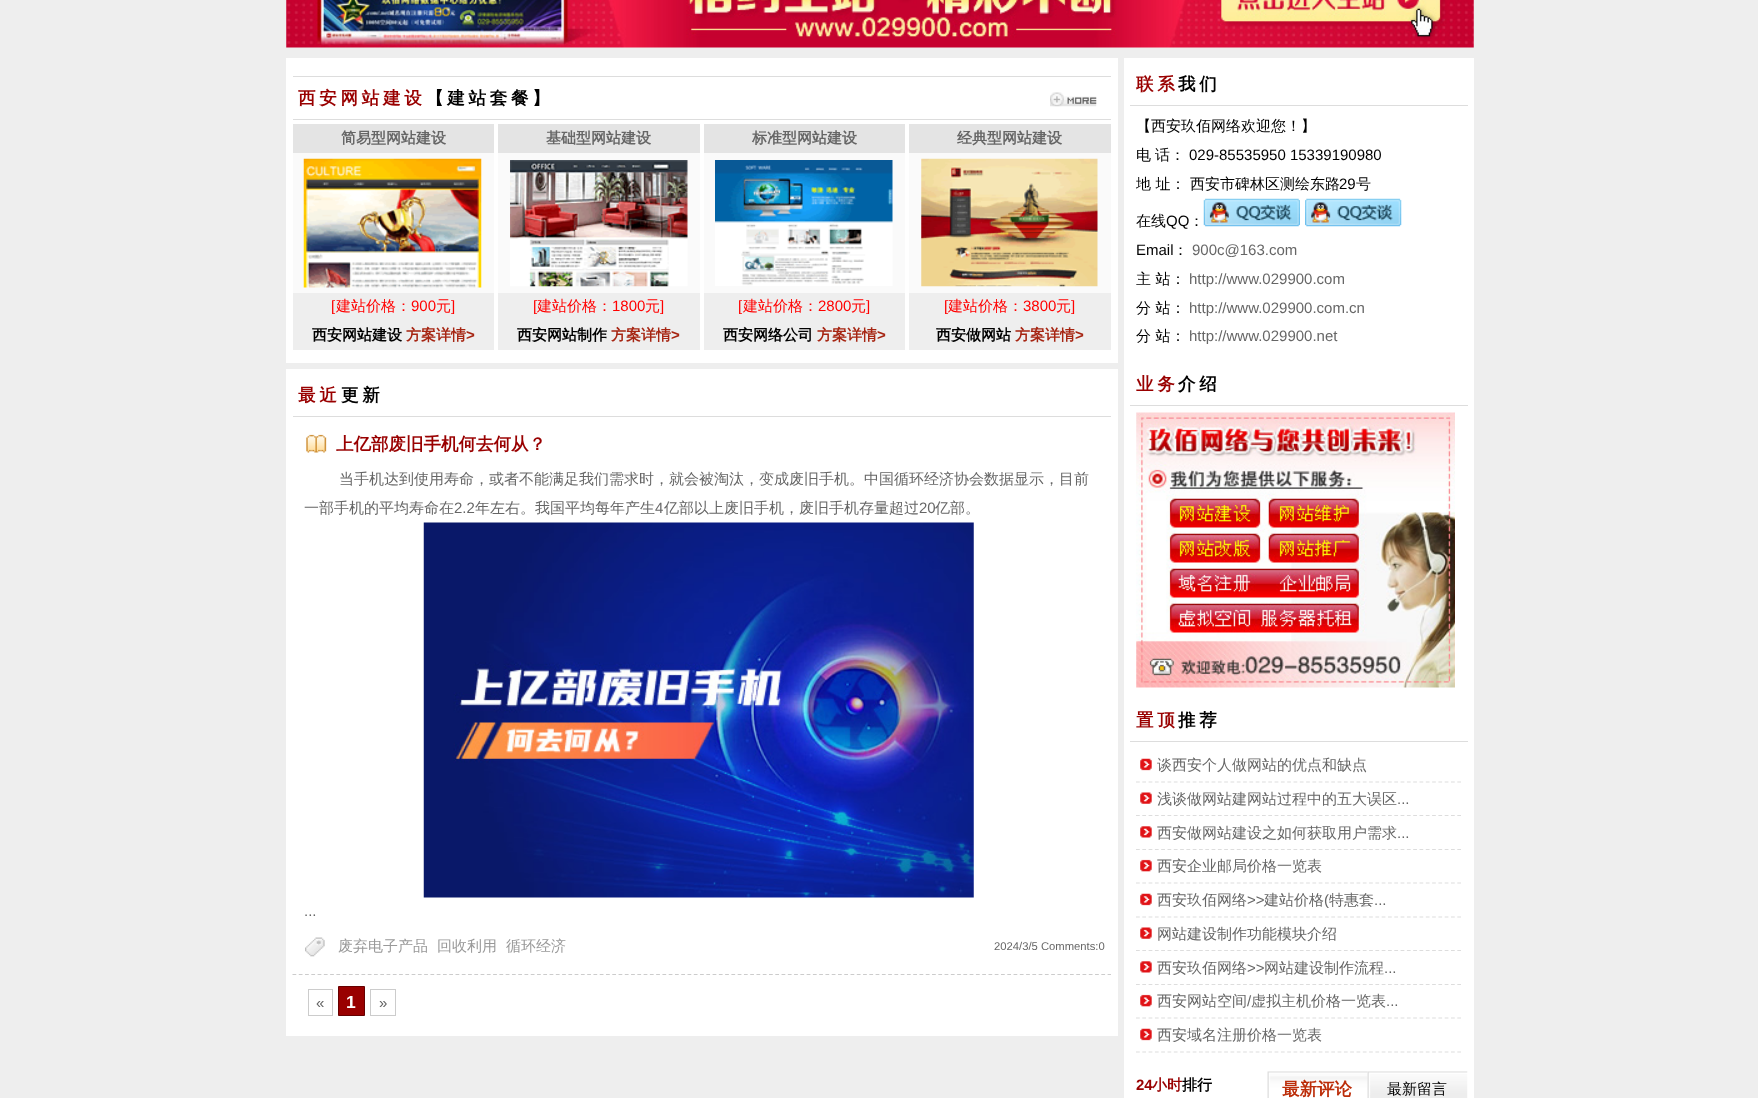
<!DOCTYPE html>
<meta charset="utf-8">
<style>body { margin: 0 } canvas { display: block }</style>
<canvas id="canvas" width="1758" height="1098"></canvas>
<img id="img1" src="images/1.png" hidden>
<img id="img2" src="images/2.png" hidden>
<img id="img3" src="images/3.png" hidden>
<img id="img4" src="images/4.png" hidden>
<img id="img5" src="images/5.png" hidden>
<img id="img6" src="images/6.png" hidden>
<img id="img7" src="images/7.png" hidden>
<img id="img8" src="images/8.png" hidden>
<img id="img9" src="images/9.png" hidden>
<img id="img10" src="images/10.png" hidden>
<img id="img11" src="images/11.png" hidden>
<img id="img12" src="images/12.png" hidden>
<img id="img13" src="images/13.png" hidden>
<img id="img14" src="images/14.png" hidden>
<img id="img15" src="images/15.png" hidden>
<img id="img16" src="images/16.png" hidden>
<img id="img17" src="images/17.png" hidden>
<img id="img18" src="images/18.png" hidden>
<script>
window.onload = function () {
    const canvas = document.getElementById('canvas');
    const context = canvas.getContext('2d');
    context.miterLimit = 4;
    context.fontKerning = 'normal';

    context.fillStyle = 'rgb(238, 238, 238)';
    context.fillRect(0, 0, 1758, 1098);
    context.drawImage(document.getElementById('img1'), 286, 0, 1188, 48);
    context.fillStyle = 'rgb(255, 255, 255)';
    context.fillRect(286, 58, 832, 305);
    context.fillStyle = 'rgb(221, 221, 221)';
    context.fillRect(293, 76, 818, 1);
    context.fillRect(293, 119, 818, 1);
    context.drawImage(document.getElementById('img2'), 1050, 92, 47, 15);
    context.fillStyle = 'rgb(228, 228, 228)';
    context.fillRect(293, 124, 201, 29);
    context.fillStyle = 'rgb(250, 250, 250)';
    context.fillRect(293, 153, 201, 140);
    context.drawImage(document.getElementById('img3'), 303, 158, 179, 130);
    context.fillStyle = 'rgb(238, 238, 238)';
    context.fillRect(293, 293, 201, 57);
    context.fillStyle = 'rgb(228, 228, 228)';
    context.fillRect(498, 124, 202, 29);
    context.fillStyle = 'rgb(250, 250, 250)';
    context.fillRect(498, 153, 202, 140);
    context.drawImage(document.getElementById('img4'), 510, 160, 178, 127);
    context.fillStyle = 'rgb(238, 238, 238)';
    context.fillRect(498, 293, 202, 57);
    context.fillStyle = 'rgb(228, 228, 228)';
    context.fillRect(704, 124, 201, 29);
    context.fillStyle = 'rgb(250, 250, 250)';
    context.fillRect(704, 153, 201, 140);
    context.drawImage(document.getElementById('img5'), 715, 160, 178, 126);
    context.fillStyle = 'rgb(238, 238, 238)';
    context.fillRect(704, 293, 201, 57);
    context.fillStyle = 'rgb(228, 228, 228)';
    context.fillRect(909, 124, 202, 29);
    context.fillStyle = 'rgb(250, 250, 250)';
    context.fillRect(909, 153, 202, 140);
    context.drawImage(document.getElementById('img6'), 921, 158, 177, 129);
    context.fillStyle = 'rgb(238, 238, 238)';
    context.fillRect(909, 293, 202, 57);
    context.fillStyle = 'rgb(255, 255, 255)';
    context.fillRect(286, 369, 832, 667);
    context.fillStyle = 'rgb(221, 221, 221)';
    context.fillRect(293, 416, 818, 1);
    context.beginPath();
    context.moveTo(292.5, 974.5);
    context.lineTo(1111, 974.5);
    context.strokeStyle = 'rgb(204, 204, 204)';
    context.lineWidth = 1.2;
    context.setLineDash([3.75, 2.52]);
    context.stroke();
    context.drawImage(document.getElementById('img7'), 306, 434, 21, 19);
    context.drawImage(document.getElementById('img8'), 423, 522, 551, 376);
    context.drawImage(document.getElementById('img9'), 305, 937, 20, 20);
    context.lineWidth = 1;
    context.setLineDash([]);
    context.strokeRect(308.5, 989.5, 24, 26);
    context.fillStyle = 'rgb(153, 0, 0)';
    context.beginPath();
    context.rect(338.5, 986.5, 26, 29);
    context.fill();
    context.strokeStyle = 'rgb(102, 0, 0)';
    context.stroke();
    context.strokeStyle = 'rgb(204, 204, 204)';
    context.strokeRect(370.5, 989.5, 25, 26);
    context.fillStyle = 'rgb(255, 255, 255)';
    context.fillRect(1124, 58, 350, 1040);
    context.fillStyle = 'rgb(221, 221, 221)';
    context.fillRect(1130, 105, 338, 1);
    context.drawImage(document.getElementById('img10'), 1203, 198, 97, 29);
    context.drawImage(document.getElementById('img11'), 1305, 198, 97, 29);
    context.fillRect(1130, 405, 338, 1);
    context.drawImage(document.getElementById('img12'), 1136, 412, 319, 276);
    context.fillRect(1130, 741, 338, 1);
    context.drawImage(document.getElementById('img13'), 1140, 758, 12, 13);
    context.beginPath();
    context.moveTo(1136, 782);
    context.lineTo(1461, 782);
    context.strokeStyle = 'rgb(221, 221, 221)';
    context.lineWidth = 1.2;
    context.setLineDash([3.75, 2.55]);
    context.stroke();
    context.drawImage(document.getElementById('img14'), 1140, 792, 12, 12);
    context.beginPath();
    context.moveTo(1136, 815.5);
    context.lineTo(1461, 815.5);
    context.stroke();
    context.drawImage(document.getElementById('img15'), 1140, 826, 12, 12);
    context.beginPath();
    context.moveTo(1136, 849.5);
    context.lineTo(1461, 849.5);
    context.stroke();
    context.drawImage(document.getElementById('img16'), 1140, 859, 12, 13);
    context.beginPath();
    context.moveTo(1136, 883);
    context.lineTo(1461, 883);
    context.stroke();
    context.drawImage(document.getElementById('img13'), 1140, 893, 12, 13);
    context.beginPath();
    context.moveTo(1136, 917);
    context.lineTo(1461, 917);
    context.stroke();
    context.drawImage(document.getElementById('img14'), 1140, 927, 12, 12);
    context.beginPath();
    context.moveTo(1136, 950.5);
    context.lineTo(1461, 950.5);
    context.stroke();
    context.drawImage(document.getElementById('img15'), 1140, 961, 12, 12);
    context.beginPath();
    context.moveTo(1136, 984.5);
    context.lineTo(1461, 984.5);
    context.stroke();
    context.drawImage(document.getElementById('img16'), 1140, 994, 12, 13);
    context.beginPath();
    context.moveTo(1136, 1018);
    context.lineTo(1461, 1018);
    context.stroke();
    context.drawImage(document.getElementById('img13'), 1140, 1028, 12, 13);
    context.beginPath();
    context.moveTo(1136, 1052);
    context.lineTo(1461, 1052);
    context.stroke();
    context.drawImage(document.getElementById('img17'), 1267, 1071, 101, 27);
    context.drawImage(document.getElementById('img18'), 1367, 1071, 101, 27);
    context.letterSpacing = '3.75px';
    context.font = 'bold 17.5px WenQuanYi Zen Hei';
    context.fillStyle = 'rgb(153, 0, 0)';
    context.fillText('西安网站建设', 298, 104);
    context.fillStyle = 'rgb(0, 0, 0)';
    context.fillText('【建站套餐】', 426, 104);
    context.letterSpacing = '0px';
    context.font = 'bold 15px WenQuanYi Zen Hei';
    context.fillStyle = 'rgb(102, 102, 102)';
    context.fillText('简易型网站建设', 341, 143);
    context.font = '15px Liberation Sans';
    context.fillStyle = 'rgb(255, 0, 0)';
    context.fillText('[', 331, 311);
    context.font = '500 15px WenQuanYi Zen Hei';
    context.fillText('建站价格：', 336, 311);
    context.font = '15px Liberation Sans';
    context.fillText('900', 411, 311);
    context.font = '500 15px WenQuanYi Zen Hei';
    context.fillText('元', 436, 311);
    context.font = '15px Liberation Sans';
    context.fillText(']', 451, 311);
    context.font = 'bold 15px WenQuanYi Zen Hei';
    context.fillStyle = 'rgb(0, 0, 0)';
    context.fillText('西安网站建设', 312, 340);
    context.fillStyle = 'rgb(166, 37, 18)';
    context.fillText('方案详情', 406, 340);
    context.font = 'bold 15px Liberation Sans';
    context.fillText('>', 466, 340);
    context.font = 'bold 15px WenQuanYi Zen Hei';
    context.fillStyle = 'rgb(102, 102, 102)';
    context.fillText('基础型网站建设', 546, 143);
    context.font = '15px Liberation Sans';
    context.fillStyle = 'rgb(255, 0, 0)';
    context.fillText('[', 533, 311);
    context.font = '500 15px WenQuanYi Zen Hei';
    context.fillText('建站价格：', 537, 311);
    context.font = '15px Liberation Sans';
    context.fillText('1800', 612, 311);
    context.font = '500 15px WenQuanYi Zen Hei';
    context.fillText('元', 645, 311);
    context.font = '15px Liberation Sans';
    context.fillText(']', 660, 311);
    context.font = 'bold 15px WenQuanYi Zen Hei';
    context.fillStyle = 'rgb(0, 0, 0)';
    context.fillText('西安网站制作', 517, 340);
    context.fillStyle = 'rgb(166, 37, 18)';
    context.fillText('方案详情', 611, 340);
    context.font = 'bold 15px Liberation Sans';
    context.fillText('>', 671, 340);
    context.font = 'bold 15px WenQuanYi Zen Hei';
    context.fillStyle = 'rgb(102, 102, 102)';
    context.fillText('标准型网站建设', 752, 143);
    context.font = '15px Liberation Sans';
    context.fillStyle = 'rgb(255, 0, 0)';
    context.fillText('[', 738, 311);
    context.font = '500 15px WenQuanYi Zen Hei';
    context.fillText('建站价格：', 743, 311);
    context.font = '15px Liberation Sans';
    context.fillText('2800', 818, 311);
    context.font = '500 15px WenQuanYi Zen Hei';
    context.fillText('元', 851, 311);
    context.font = '15px Liberation Sans';
    context.fillText(']', 866, 311);
    context.font = 'bold 15px WenQuanYi Zen Hei';
    context.fillStyle = 'rgb(0, 0, 0)';
    context.fillText('西安网络公司', 723, 340);
    context.fillStyle = 'rgb(166, 37, 18)';
    context.fillText('方案详情', 817, 340);
    context.font = 'bold 15px Liberation Sans';
    context.fillText('>', 877, 340);
    context.font = 'bold 15px WenQuanYi Zen Hei';
    context.fillStyle = 'rgb(102, 102, 102)';
    context.fillText('经典型网站建设', 957, 143);
    context.font = '15px Liberation Sans';
    context.fillStyle = 'rgb(255, 0, 0)';
    context.fillText('[', 944, 311);
    context.font = '500 15px WenQuanYi Zen Hei';
    context.fillText('建站价格：', 948, 311);
    context.font = '15px Liberation Sans';
    context.fillText('3800', 1023, 311);
    context.font = '500 15px WenQuanYi Zen Hei';
    context.fillText('元', 1056, 311);
    context.font = '15px Liberation Sans';
    context.fillText(']', 1071, 311);
    context.font = 'bold 15px WenQuanYi Zen Hei';
    context.fillStyle = 'rgb(0, 0, 0)';
    context.fillText('西安做网站', 936, 340);
    context.fillStyle = 'rgb(166, 37, 18)';
    context.fillText('方案详情', 1015, 340);
    context.font = 'bold 15px Liberation Sans';
    context.fillText('>', 1075, 340);
    context.letterSpacing = '3.75px';
    context.font = 'bold 17.5px WenQuanYi Zen Hei';
    context.fillStyle = 'rgb(153, 0, 0)';
    context.fillText('最近', 298, 401);
    context.fillStyle = 'rgb(0, 0, 0)';
    context.fillText('更新', 341, 401);
    context.letterSpacing = '0px';
    context.fillStyle = 'rgb(153, 0, 0)';
    context.fillText('上亿部废旧手机何去何从？', 336, 450);
    context.font = '500 15px WenQuanYi Zen Hei';
    context.fillStyle = 'rgb(102, 102, 102)';
    context.fillText('当手机达到使用寿命，或者不能满足我们需求时，就会被淘汰，变成废旧手机。中国循环经济协会数据显示，目前', 339, 484);
    context.fillText('一部手机的平均寿命在', 304, 513);
    context.font = '15px Liberation Sans';
    context.fillText('2.2', 454, 513);
    context.font = '500 15px WenQuanYi Zen Hei';
    context.fillText('年左右。我国平均每年产生', 475, 513);
    context.font = '15px Liberation Sans';
    context.fillText('4', 655, 513);
    context.font = '500 15px WenQuanYi Zen Hei';
    context.fillText('亿部以上废旧手机，废旧手机存量超过', 664, 513);
    context.font = '15px Liberation Sans';
    context.fillText('20', 919, 513);
    context.font = '500 15px WenQuanYi Zen Hei';
    context.fillText('亿部。', 935, 513);
    context.font = '15px Liberation Sans';
    context.fillText('...', 304, 916);
    context.font = '500 15px WenQuanYi Zen Hei';
    context.fillStyle = 'rgb(153, 153, 153)';
    context.fillText('废弃电子产品', 338, 951);
    context.fillText('回收利用', 437, 951);
    context.fillText('循环经济', 506, 951);
    context.font = '11.25px Liberation Sans';
    context.fillStyle = 'rgb(102, 102, 102)';
    context.fillText('2024/3/5 Comments:0', 994, 950);
    context.font = '15px Liberation Sans';
    context.fillText('«', 316, 1008);
    context.font = 'bold 17.5px Liberation Sans';
    context.fillStyle = 'rgb(255, 255, 255)';
    context.fillText('1', 346, 1008);
    context.font = '15px Liberation Sans';
    context.fillStyle = 'rgb(102, 102, 102)';
    context.fillText('»', 379, 1008);
    context.letterSpacing = '3.75px';
    context.font = 'bold 17.5px WenQuanYi Zen Hei';
    context.fillStyle = 'rgb(153, 0, 0)';
    context.fillText('联系', 1136, 90);
    context.fillStyle = 'rgb(0, 0, 0)';
    context.fillText('我们', 1178, 90);
    context.letterSpacing = '0px';
    context.font = '500 15px WenQuanYi Zen Hei';
    context.fillText('【西安玖佰网络欢迎您！】', 1136, 131);
    context.fillText('电', 1136, 160);
    context.fillText('话：', 1155, 160);
    context.font = '15px Liberation Sans';
    context.fillText('029-85535950 15339190980', 1189, 160);
    context.font = '500 15px WenQuanYi Zen Hei';
    context.fillText('地 址： 西安市碑林区测绘东路', 1136, 189);
    context.font = '15px Liberation Sans';
    context.fillText('29', 1339, 189);
    context.font = '500 15px WenQuanYi Zen Hei';
    context.fillText('号', 1356, 189);
    context.fillText('在线', 1136, 226);
    context.font = '15px Liberation Sans';
    context.fillText('QQ', 1166, 226);
    context.font = '500 15px WenQuanYi Zen Hei';
    context.fillText('：', 1189, 226);
    context.font = '15px Liberation Sans';
    context.fillText('Email', 1136, 255);
    context.font = '500 15px WenQuanYi Zen Hei';
    context.fillText('：', 1173, 255);
    context.font = '15px Liberation Sans';
    context.fillStyle = 'rgb(102, 102, 102)';
    context.fillText('900c@163.com', 1192, 255);
    context.font = '500 15px WenQuanYi Zen Hei';
    context.fillStyle = 'rgb(0, 0, 0)';
    context.fillText('主 站：', 1136, 284);
    context.font = '15px Liberation Sans';
    context.fillStyle = 'rgb(102, 102, 102)';
    context.fillText('http://www.029900.com', 1189, 284);
    context.font = '500 15px WenQuanYi Zen Hei';
    context.fillStyle = 'rgb(0, 0, 0)';
    context.fillText('分 站：', 1136, 313);
    context.font = '15px Liberation Sans';
    context.fillStyle = 'rgb(102, 102, 102)';
    context.fillText('http://www.029900.com.cn', 1189, 313);
    context.font = '500 15px WenQuanYi Zen Hei';
    context.fillStyle = 'rgb(0, 0, 0)';
    context.fillText('分 站：', 1136, 341);
    context.font = '15px Liberation Sans';
    context.fillStyle = 'rgb(102, 102, 102)';
    context.fillText('http://www.029900.net', 1189, 341);
    context.letterSpacing = '3.75px';
    context.font = 'bold 17.5px WenQuanYi Zen Hei';
    context.fillStyle = 'rgb(153, 0, 0)';
    context.fillText('业务', 1136, 390);
    context.fillStyle = 'rgb(0, 0, 0)';
    context.fillText('介绍', 1178, 390);
    context.fillStyle = 'rgb(153, 0, 0)';
    context.fillText('置顶', 1136, 726);
    context.fillStyle = 'rgb(0, 0, 0)';
    context.fillText('推荐', 1178, 726);
    context.letterSpacing = '0px';
    context.font = '500 15px WenQuanYi Zen Hei';
    context.fillStyle = 'rgb(102, 102, 102)';
    context.fillText('谈西安个人做网站的优点和缺点', 1157, 770);
    context.fillText('浅谈做网站建网站过程中的五大误区', 1157, 804);
    context.font = '15px Liberation Sans';
    context.fillText('...', 1397, 804);
    context.font = '500 15px WenQuanYi Zen Hei';
    context.fillText('西安做网站建设之如何获取用户需求', 1157, 838);
    context.font = '15px Liberation Sans';
    context.fillText('...', 1397, 838);
    context.font = '500 15px WenQuanYi Zen Hei';
    context.fillText('西安企业邮局价格一览表', 1157, 871);
    context.fillText('西安玖佰网络', 1157, 905);
    context.font = '15px Liberation Sans';
    context.fillText('>>', 1247, 905);
    context.font = '500 15px WenQuanYi Zen Hei';
    context.fillText('建站价格', 1264, 905);
    context.font = '15px Liberation Sans';
    context.fillText('(', 1324, 905);
    context.font = '500 15px WenQuanYi Zen Hei';
    context.fillText('特惠套', 1329, 905);
    context.font = '15px Liberation Sans';
    context.fillText('...', 1374, 905);
    context.font = '500 15px WenQuanYi Zen Hei';
    context.fillText('网站建设制作功能模块介绍', 1157, 939);
    context.fillText('西安玖佰网络', 1157, 973);
    context.font = '15px Liberation Sans';
    context.fillText('>>', 1247, 973);
    context.font = '500 15px WenQuanYi Zen Hei';
    context.fillText('网站建设制作流程', 1264, 973);
    context.font = '15px Liberation Sans';
    context.fillText('...', 1384, 973);
    context.font = '500 15px WenQuanYi Zen Hei';
    context.fillText('西安网站空间', 1157, 1006);
    context.font = '15px Liberation Sans';
    context.fillText('/', 1247, 1006);
    context.font = '500 15px WenQuanYi Zen Hei';
    context.fillText('虚拟主机价格一览表', 1251, 1006);
    context.font = '15px Liberation Sans';
    context.fillText('...', 1386, 1006);
    context.font = '500 15px WenQuanYi Zen Hei';
    context.fillText('西安域名注册价格一览表', 1157, 1040);
    context.font = 'bold 15px Liberation Sans';
    context.fillStyle = 'rgb(153, 0, 0)';
    context.fillText('24', 1136, 1090);
    context.font = 'bold 15px WenQuanYi Zen Hei';
    context.fillText('小时', 1152, 1090);
    context.fillStyle = 'rgb(0, 0, 0)';
    context.fillText('排行', 1182, 1090);
    context.font = 'bold 17.5px WenQuanYi Zen Hei';
    context.fillStyle = 'rgb(188, 45, 9)';
    context.fillText('最新评论', 1282, 1095);
    context.font = '500 15px WenQuanYi Zen Hei';
    context.fillStyle = 'rgb(0, 0, 0)';
    context.fillText('最新留言', 1387, 1094);
};
</script>
